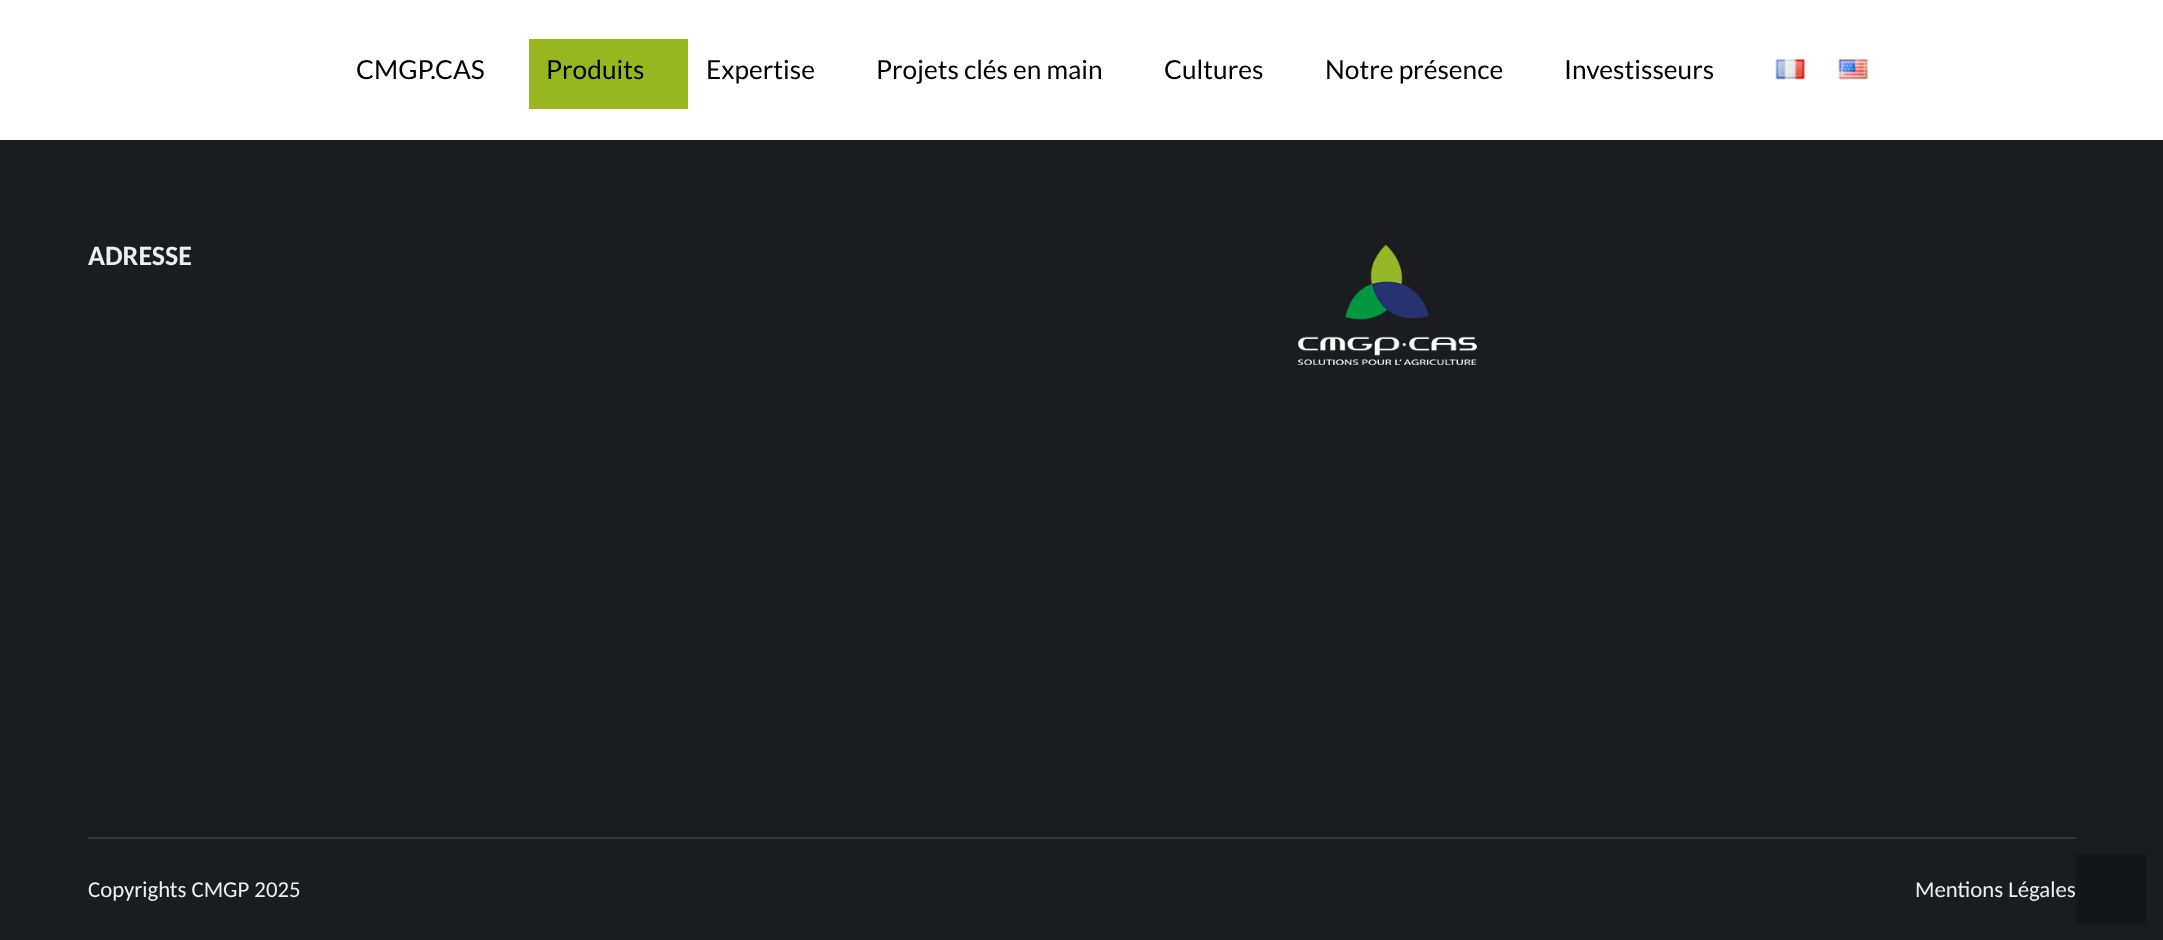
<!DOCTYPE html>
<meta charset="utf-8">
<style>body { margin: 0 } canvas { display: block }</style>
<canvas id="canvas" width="2163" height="940"></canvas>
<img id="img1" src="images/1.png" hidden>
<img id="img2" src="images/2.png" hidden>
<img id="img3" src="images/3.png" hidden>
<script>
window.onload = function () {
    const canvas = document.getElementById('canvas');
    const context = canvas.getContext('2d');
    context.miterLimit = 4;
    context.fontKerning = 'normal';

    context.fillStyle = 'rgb(26, 28, 32)';
    context.fillRect(0, 0, 2163, 940);
    context.fillStyle = 'rgb(255, 255, 255)';
    context.fillRect(0, 0, 2163, 140);
    context.fillStyle = 'rgb(150, 183, 32)';
    context.fillRect(529, 39, 159, 70);
    context.drawImage(document.getElementById('img1'), 1775, 59, 30, 21);
    context.drawImage(document.getElementById('img2'), 1838, 59, 30, 21);
    context.drawImage(document.getElementById('img3'), 1298, 245, 179, 120);
    context.fillStyle = 'rgb(53, 55, 59)';
    context.fillRect(88, 837, 1988, 2);
    context.fillStyle = 'rgb(21, 22, 26)';
    context.fillRect(2076, 854, 70, 70);
    context.font = '26.25px Lato';
    context.fillStyle = 'rgb(0, 0, 0)';
    context.fillText('CMGP.CAS', 356, 79);
    context.fillText('Produits', 546, 79);
    context.fillText('Expertise', 706, 79);
    context.fillText('Projets clés en main', 876, 79);
    context.fillText('Cultures', 1164, 79);
    context.fillText('Notre présence', 1325, 79);
    context.fillText('Investisseurs', 1564, 79);
    context.font = 'bold 28px Carlito';
    context.fillStyle = 'rgb(238, 238, 238)';
    context.fillText('ADRESSE', 88, 265);
    context.font = '22.75px Carlito';
    context.fillText('Copyrights CMGP 2025', 88, 897);
    context.fillText('Mentions Légales', 1915, 897);
};
</script>
